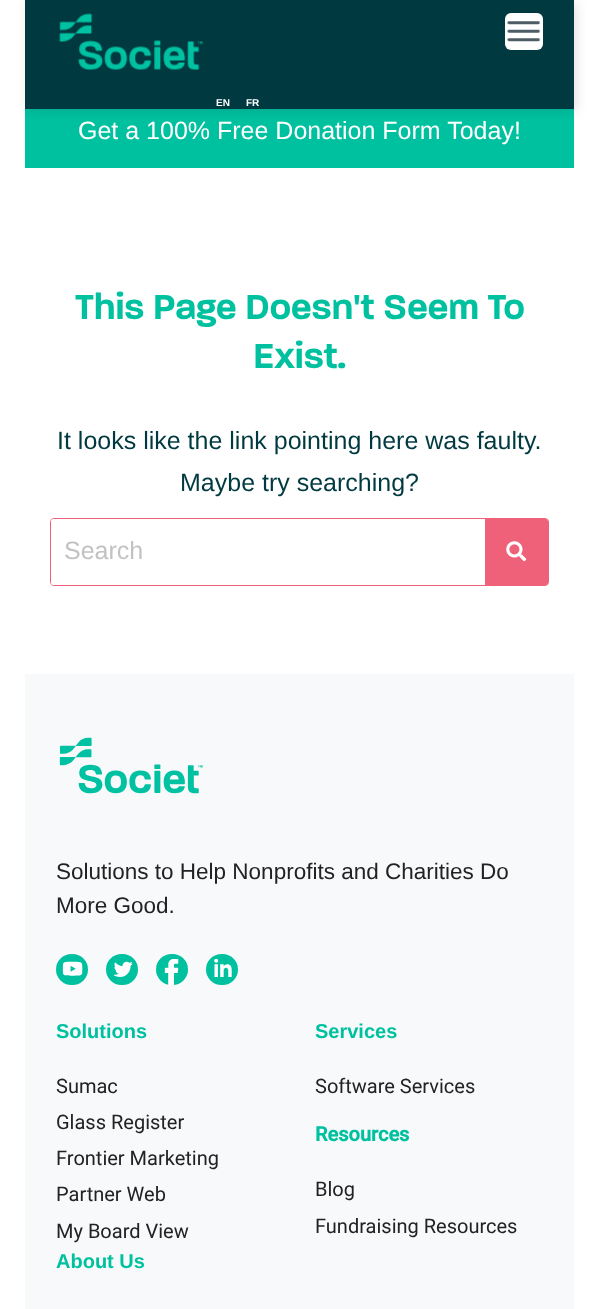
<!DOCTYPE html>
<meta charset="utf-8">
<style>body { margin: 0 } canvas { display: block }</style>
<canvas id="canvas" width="598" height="1309"></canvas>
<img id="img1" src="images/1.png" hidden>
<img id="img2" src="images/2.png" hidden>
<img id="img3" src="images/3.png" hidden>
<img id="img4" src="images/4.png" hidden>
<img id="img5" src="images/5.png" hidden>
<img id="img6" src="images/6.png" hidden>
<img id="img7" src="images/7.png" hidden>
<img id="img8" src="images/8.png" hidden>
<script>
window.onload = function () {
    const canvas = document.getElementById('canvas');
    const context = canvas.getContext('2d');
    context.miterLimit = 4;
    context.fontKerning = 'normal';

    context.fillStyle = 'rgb(255, 255, 255)';
    context.fillRect(0, 0, 598, 1309);
    context.fillStyle = 'rgb(0, 58, 64)';
    context.fillRect(25, 0, 549, 109);
    context.fillStyle = 'rgb(0, 193, 159)';
    context.fillRect(25, 109, 549, 59);
    context.save();
    context.beginPath();
    context.moveTo(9, 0);
    context.lineTo(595, 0);
    context.lineTo(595, 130);
    context.lineTo(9, 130);
    context.closePath();
    context.moveTo(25, 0);
    context.lineTo(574, 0);
    context.lineTo(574, 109);
    context.lineTo(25, 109);
    context.closePath();
    context.clip('evenodd');
    context.fillStyle = 'rgba(0, 0, 0, 0.12)';
    context.filter = 'blur(6px)';
    context.beginPath();
    context.rect(28, 3, 548, 108);
    context.fill();
    context.filter = 'none';
    context.restore();
    context.drawImage(document.getElementById('img1'), 59, 13, 145, 57);
    context.fillStyle = 'rgb(255, 255, 255)';
    context.beginPath();
    context.roundRect(505, 13, 38, 37, 6);
    context.fill();
    context.drawImage(document.getElementById('img2'), 507, 21, 34, 21);
    context.beginPath();
    context.roundRect(50.5, 518.5, 498, 67, 3.5);
    context.strokeStyle = 'rgb(239, 96, 121)';
    context.stroke();
    context.beginPath();
    context.roundRect(51, 519, 434, 66, [2.5, 0, 0, 2.5]);
    context.fill();
    context.fillStyle = 'rgb(239, 96, 121)';
    context.beginPath();
    context.roundRect(485, 519, 63, 66, [0, 2.5, 2.5, 0]);
    context.fill();
    context.drawImage(document.getElementById('img3'), 506, 541, 21, 21);
    context.fillStyle = 'rgb(247, 249, 251)';
    context.fillRect(25, 674, 549, 635);
    context.drawImage(document.getElementById('img4'), 59, 737, 144, 57);
    context.fillStyle = 'rgb(0, 193, 159)';
    context.beginPath();
    context.roundRect(56, 954, 32, 31, 15.5);
    context.fill();
    context.drawImage(document.getElementById('img5'), 62, 961, 21, 15);
    context.beginPath();
    context.roundRect(106, 954, 32, 31, 15.5);
    context.fill();
    context.drawImage(document.getElementById('img6'), 113, 961, 20, 16);
    context.beginPath();
    context.roundRect(156, 954, 32, 31, 15.5);
    context.fill();
    context.drawImage(document.getElementById('img7'), 164, 959, 15, 26);
    context.beginPath();
    context.roundRect(206, 954, 32, 31, 15.5);
    context.fill();
    context.drawImage(document.getElementById('img8'), 214, 959, 18, 18);
    context.font = 'bold 10px Liberation Sans';
    context.fillStyle = 'rgb(255, 255, 255)';
    context.fillText('EN', 216, 106);
    context.fillText('FR', 246, 106);
    context.font = '25px Liberation Sans';
    context.fillText('Get a 100% Free Donation Form Today!', 78, 139);
    context.font = '600 37.5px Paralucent';
    context.fillStyle = 'rgb(0, 193, 159)';
    context.fillText('This Page Doesn\'t Seem To', 75, 319);
    context.fillText('Exist.', 253, 368);
    context.font = '25px Liberation Sans';
    context.fillStyle = 'rgb(0, 58, 64)';
    context.fillText('It looks like the link pointing here was faulty.', 57, 449);
    context.fillText('Maybe try searching?', 180, 491);
    context.fillStyle = 'rgb(194, 194, 193)';
    context.fillText('Search', 64, 559);
    context.font = '22.5px Liberation Sans';
    context.fillStyle = 'rgb(34, 34, 34)';
    context.fillText('Solutions to Help Nonprofits and Charities Do', 56, 879);
    context.fillText('More Good.', 56, 913);
    context.font = 'bold 20px Liberation Sans';
    context.fillStyle = 'rgb(0, 193, 159)';
    context.fillText('Solutions', 56, 1038);
    context.font = '20px Roboto';
    context.fillStyle = 'rgb(34, 34, 34)';
    context.fillText('Sumac', 56, 1093);
    context.fillText('Glass Register', 56, 1129);
    context.fillText('Frontier Marketing', 56, 1165);
    context.fillText('Partner Web', 56, 1201);
    context.fillText('My Board View', 56, 1238);
    context.font = 'bold 20px Liberation Sans';
    context.fillStyle = 'rgb(0, 193, 159)';
    context.fillText('Services', 315, 1038);
    context.font = '20px Roboto';
    context.fillStyle = 'rgb(34, 34, 34)';
    context.fillText('Software Services', 315, 1093);
    context.font = 'bold 20px Roboto';
    context.fillStyle = 'rgb(0, 193, 159)';
    context.fillText('Resources', 315, 1141);
    context.font = '20px Roboto';
    context.fillStyle = 'rgb(34, 34, 34)';
    context.fillText('Blog', 315, 1196);
    context.fillText('Fundraising Resources', 315, 1233);
    context.font = 'bold 20px Liberation Sans';
    context.fillStyle = 'rgb(0, 193, 159)';
    context.fillText('About Us', 56, 1268);
};
</script>
